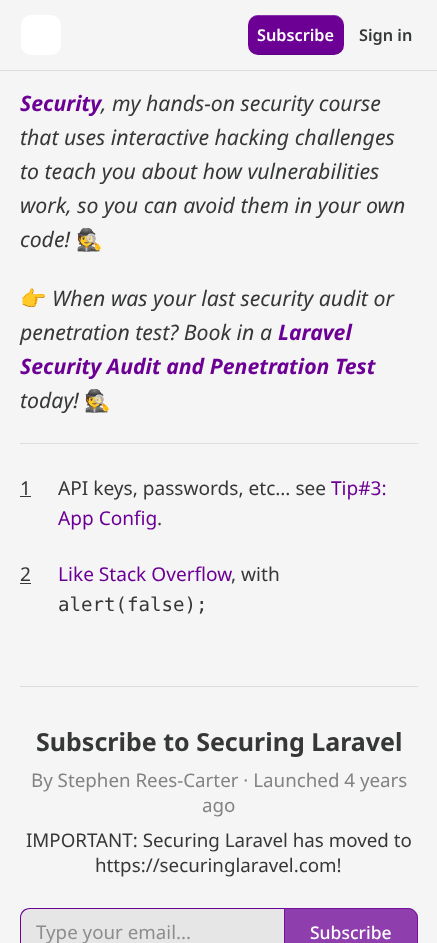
<!DOCTYPE html>
<meta charset="utf-8">
<style>body { margin: 0 } canvas { display: block }</style>
<canvas id="canvas" width="437" height="943"></canvas>
<script>
window.onload = function () {
    const canvas = document.getElementById('canvas');
    const context = canvas.getContext('2d');
    context.miterLimit = 4;
    context.fontKerning = 'normal';

    context.fillStyle = 'rgb(245, 245, 245)';
    context.fillRect(0, 0, 437, 943);
    context.fillStyle = 'rgb(221, 221, 221)';
    context.fillRect(0, 70, 437, 1);
    context.fillStyle = 'rgb(255, 255, 255)';
    context.beginPath();
    context.roundRect(21, 15, 40, 40, 10);
    context.fill();
    context.fillStyle = 'rgb(108, 0, 149)';
    context.beginPath();
    context.roundRect(248, 15, 96, 40, 10);
    context.fill();
    context.fillStyle = 'rgba(0, 0, 0, 0.1)';
    context.beginPath();
    context.moveTo(248, 44);
    context.bezierCurveTo(248, 57, 261, 55, 271, 55);
    context.lineTo(321, 55);
    context.bezierCurveTo(331, 55, 344, 57, 344, 44);
    context.bezierCurveTo(344, 49, 339, 54, 334, 54);
    context.lineTo(258, 54);
    context.bezierCurveTo(252, 54, 248, 49, 248, 44);
    context.closePath();
    context.fill();
    context.fillStyle = 'rgba(255, 255, 255, 0.2)';
    context.beginPath();
    context.moveTo(258, 16);
    context.lineTo(334, 16);
    context.bezierCurveTo(339, 16, 344, 21, 344, 26);
    context.bezierCurveTo(344, 13, 331, 15, 321, 15);
    context.lineTo(271, 15);
    context.bezierCurveTo(261, 15, 248, 13, 248, 26);
    context.bezierCurveTo(248, 21, 252, 16, 258, 16);
    context.closePath();
    context.fill();
    context.fillStyle = 'rgb(221, 221, 221)';
    context.fillRect(20, 443, 398, 1);
    context.fillStyle = 'rgb(54, 55, 55)';
    context.fillRect(20, 496, 11, 1);
    context.fillRect(20, 583, 11, 1);
    context.fillStyle = 'rgb(221, 221, 221)';
    context.fillRect(20, 686, 398, 1);
    context.fillStyle = 'rgb(230, 230, 230)';
    context.beginPath();
    context.moveTo(30, 909);
    context.lineTo(284, 909);
    context.lineTo(284, 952);
    context.lineTo(30, 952);
    context.bezierCurveTo(25, 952, 21, 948, 21, 943);
    context.lineTo(21, 918);
    context.bezierCurveTo(21, 913, 25, 909, 30, 909);
    context.closePath();
    context.fill();
    context.fillStyle = 'rgb(108, 0, 149)';
    context.beginPath();
    context.moveTo(30, 908);
    context.lineTo(284, 908);
    context.lineTo(284, 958);
    context.lineTo(30, 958);
    context.bezierCurveTo(24, 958, 20, 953, 20, 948);
    context.lineTo(20, 918);
    context.bezierCurveTo(20, 912, 24, 908, 30, 908);
    context.closePath();
    context.moveTo(30, 909);
    context.lineTo(284, 909);
    context.lineTo(284, 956);
    context.lineTo(30, 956);
    context.bezierCurveTo(25, 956, 21, 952, 21, 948);
    context.lineTo(21, 918);
    context.bezierCurveTo(21, 913, 25, 909, 30, 909);
    context.closePath();
    context.fill('evenodd');
    context.fillStyle = 'rgba(108, 0, 149, 0.75)';
    context.beginPath();
    context.moveTo(284, 908);
    context.lineTo(408, 908);
    context.bezierCurveTo(413.5, 908, 418, 912.5, 418, 918);
    context.lineTo(418, 943);
    context.bezierCurveTo(418, 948.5, 413.5, 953, 408, 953);
    context.lineTo(284, 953);
    context.closePath();
    context.fill();
    context.beginPath();
    context.moveTo(284.5, 908.5);
    context.lineTo(408, 908.5);
    context.bezierCurveTo(413, 908.5, 417.5, 913, 417.5, 918);
    context.lineTo(417.5, 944);
    context.bezierCurveTo(417.5, 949, 413, 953.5, 408, 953.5);
    context.lineTo(284.5, 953.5);
    context.closePath();
    context.strokeStyle = 'rgba(108, 0, 149, 0.75)';
    context.stroke();
    context.font = '600 16.25px Noto Sans';
    context.fillStyle = 'rgb(253, 253, 253)';
    context.fillText('Subscribe', 257, 41);
    context.fillStyle = 'rgb(54, 55, 55)';
    context.fillText('Sign in', 359, 41);
    context.font = 'italic bold 21.25px Noto Sans';
    context.fillStyle = 'rgb(108, 0, 149)';
    context.fillText('Security', 20, 111);
    context.font = 'italic 21.25px Noto Sans';
    context.fillStyle = 'rgb(54, 55, 55)';
    context.fillText(', my hands-on security course', 101, 111);
    context.fillText('that uses interactive hacking challenges', 20, 145);
    context.fillText('to teach you about how vulnerabilities', 20, 179);
    context.fillText('work, so you can avoid them in your own', 20, 213);
    context.fillText('code!', 20, 247);
    context.font = '21.25px Noto Color Emoji';
    context.fillText('🕵️', 76, 247);
    context.fillText('👉', 20, 306);
    context.font = 'italic 21.25px Noto Sans';
    context.fillText('When was your last security audit or', 52, 306);
    context.fillText('penetration test? Book in a', 20, 340);
    context.font = 'italic bold 21.25px Noto Sans';
    context.fillStyle = 'rgb(108, 0, 149)';
    context.fillText('Laravel', 278, 340);
    context.fillText('Security Audit and Penetration Test', 20, 374);
    context.font = 'italic 21.25px Noto Sans';
    context.fillStyle = 'rgb(54, 55, 55)';
    context.fillText('today!', 20, 408);
    context.font = '21.25px Noto Color Emoji';
    context.fillText('🕵️', 84, 408);
    context.font = '19.1px Noto Sans';
    context.fillText('1', 20, 495);
    context.fillText('API keys, passwords, etc… see', 58, 495);
    context.fillStyle = 'rgb(108, 0, 149)';
    context.fillText('Tip#3:', 331, 495);
    context.fillText('App Config', 58, 525);
    context.fillStyle = 'rgb(54, 55, 55)';
    context.fillText('.', 157, 525);
    context.fillText('2', 20, 581);
    context.fillStyle = 'rgb(108, 0, 149)';
    context.fillText('Like Stack Overflow', 58, 581);
    context.fillStyle = 'rgb(54, 55, 55)';
    context.fillText(', with', 231, 581);
    context.font = '19.1px DejaVu Sans Mono';
    context.fillText('alert(false);', 58, 611);
    context.font = 'bold 25px Noto Sans';
    context.fillText('Subscribe to Securing Laravel', 36, 751);
    context.font = '18.75px Noto Sans';
    context.fillStyle = 'rgb(130, 131, 131)';
    context.fillText('By Stephen Rees-Carter · Launched 4 years', 31, 787);
    context.fillText('ago', 202, 812);
    context.fillStyle = 'rgb(54, 55, 55)';
    context.fillText('IMPORTANT: Securing Laravel has moved to', 26, 847);
    context.fillText('https://securinglaravel.com!', 95, 872);
    context.fillStyle = 'rgb(141, 141, 141)';
    context.fillText('Type your email...', 36, 939);
    context.font = '500 17.5px Noto Sans';
    context.fillStyle = 'rgb(253, 253, 253)';
    context.fillText('Subscribe', 310, 939);
};
</script>
